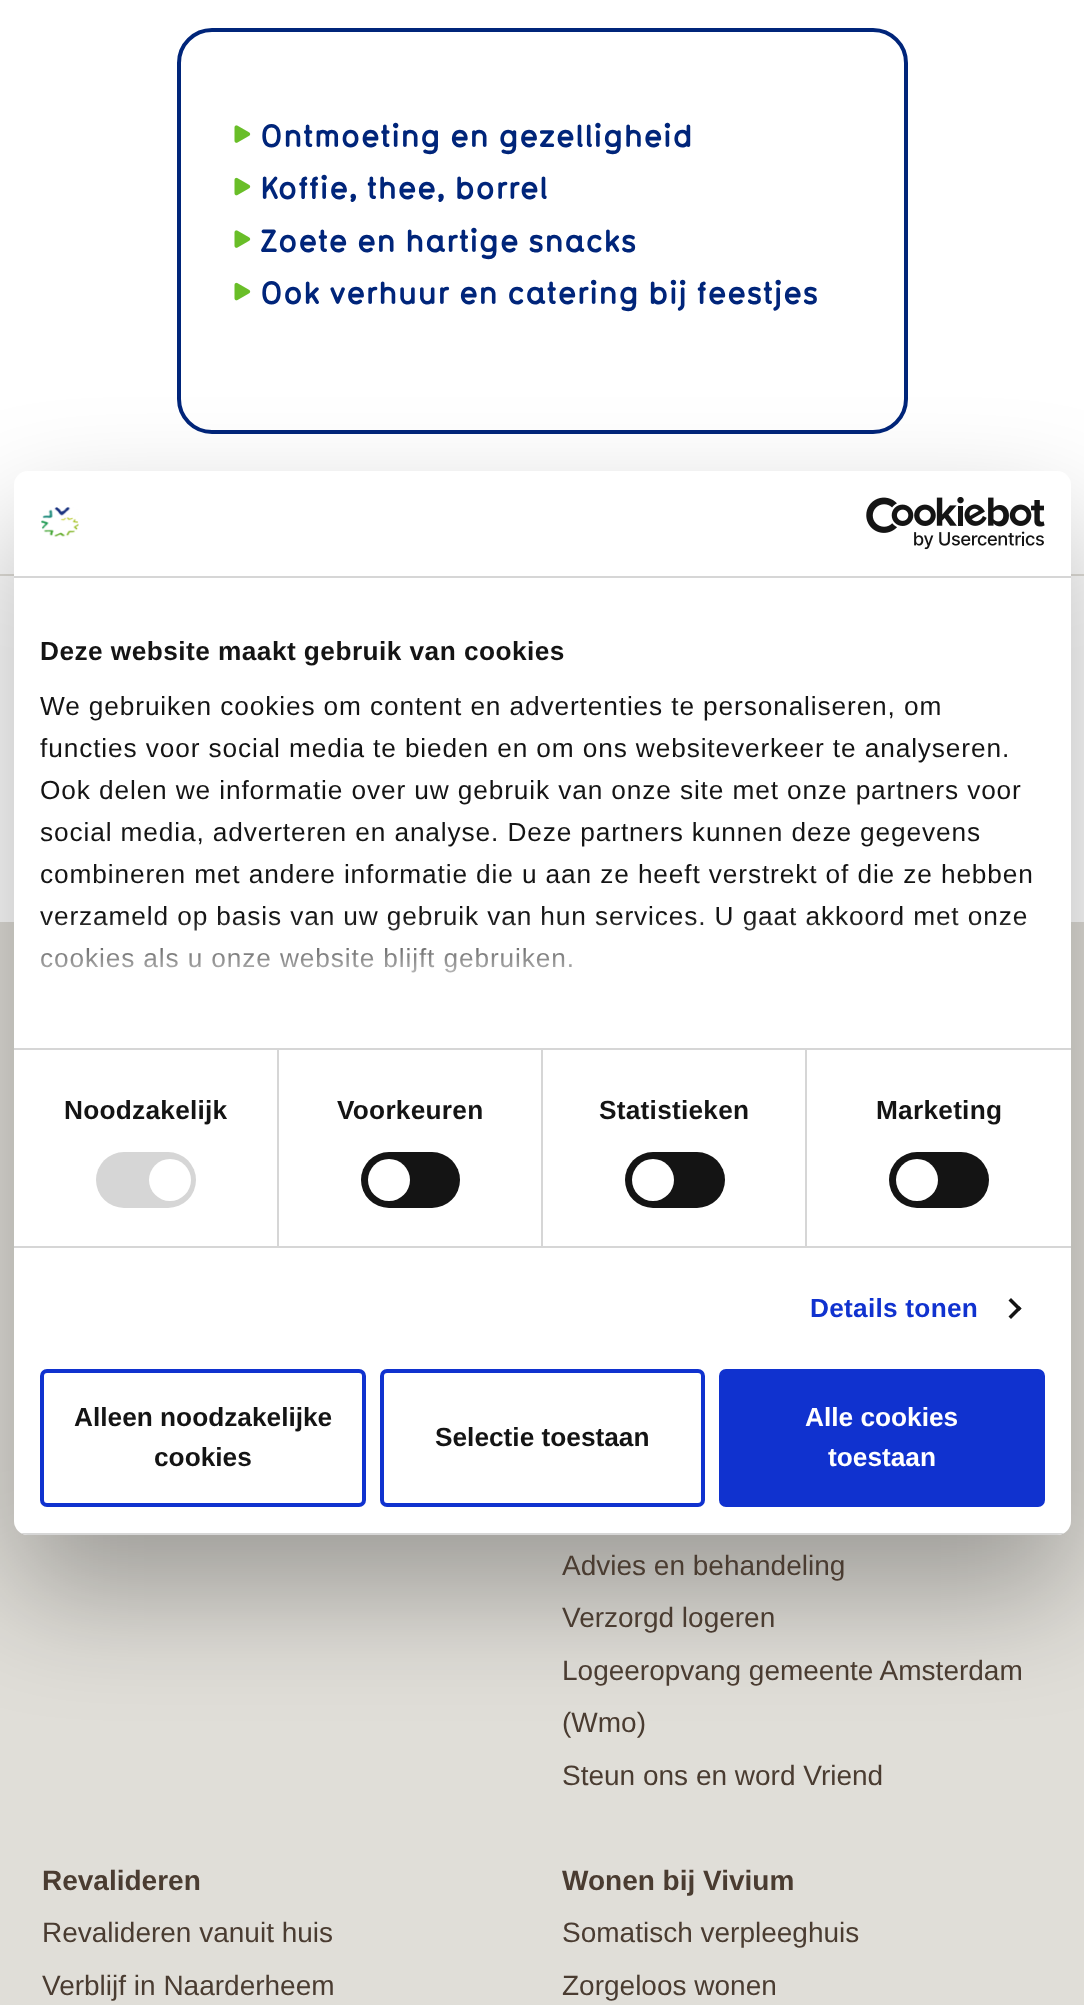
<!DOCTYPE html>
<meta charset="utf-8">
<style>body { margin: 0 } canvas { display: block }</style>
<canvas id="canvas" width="1084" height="2005"></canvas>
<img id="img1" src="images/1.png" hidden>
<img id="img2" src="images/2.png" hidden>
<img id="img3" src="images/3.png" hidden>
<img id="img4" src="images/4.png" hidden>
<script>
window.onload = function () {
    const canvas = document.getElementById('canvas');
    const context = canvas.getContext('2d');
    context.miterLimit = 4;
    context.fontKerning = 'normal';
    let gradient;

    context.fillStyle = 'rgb(255, 255, 255)';
    context.fillRect(0, 0, 1084, 2005);
    context.beginPath();
    context.roundRect(179, 30, 727, 402, 33);
    context.strokeStyle = 'rgb(0, 37, 122)';
    context.lineWidth = 4;
    context.stroke();
    context.drawImage(document.getElementById('img1'), 234, 125, 17, 18);
    context.drawImage(document.getElementById('img2'), 234, 177, 17, 19);
    context.drawImage(document.getElementById('img1'), 234, 230, 17, 18);
    context.drawImage(document.getElementById('img2'), 234, 282, 17, 19);
    context.fillStyle = 'rgb(224, 222, 216)';
    context.fillRect(0, 922, 1084, 1083);
    context.fillRect(0, 574, 1084, 2);
    context.fillStyle = 'rgba(0, 0, 0, 0.3)';
    context.filter = 'blur(59.5px)';
    context.beginPath();
    context.roundRect(14, 527, 1057, 1064, 14);
    context.fill();
    context.filter = 'none';
    context.fillStyle = 'rgb(255, 255, 255)';
    context.beginPath();
    context.roundRect(14, 471, 1057, 1064, 14);
    context.fill();
    context.fillStyle = 'rgb(214, 214, 214)';
    context.fillRect(14, 576, 1057, 2);
    context.drawImage(document.getElementById('img3'), 41, 507, 38, 30);
    context.drawImage(document.getElementById('img4'), 866, 497, 179, 53);
    context.fillRect(14, 1048, 1057, 2);
    context.fillRect(14, 1246, 1057, 2);
    context.fillRect(277, 1050, 2, 196);
    context.beginPath();
    context.roundRect(96, 1152, 100, 56, 28);
    context.fill();
    context.fillStyle = 'rgb(255, 255, 255)';
    context.beginPath();
    context.arc(170, 1180, 21, 0, 2 * Math.PI);
    context.fill();
    context.fillStyle = 'rgb(214, 214, 214)';
    context.fillRect(541, 1050, 2, 196);
    context.fillStyle = 'rgb(20, 20, 20)';
    context.beginPath();
    context.roundRect(361, 1152, 99, 56, 28);
    context.fill();
    context.fillStyle = 'rgb(255, 255, 255)';
    context.beginPath();
    context.arc(389, 1180, 21, 0, 2 * Math.PI);
    context.fill();
    context.fillStyle = 'rgb(214, 214, 214)';
    context.fillRect(805, 1050, 2, 196);
    context.fillStyle = 'rgb(20, 20, 20)';
    context.beginPath();
    context.roundRect(625, 1152, 100, 56, 28);
    context.fill();
    context.fillStyle = 'rgb(255, 255, 255)';
    context.beginPath();
    context.arc(653, 1180, 21, 0, 2 * Math.PI);
    context.fill();
    context.fillStyle = 'rgb(20, 20, 20)';
    context.beginPath();
    context.roundRect(889, 1152, 100, 56, 28);
    context.fill();
    context.fillStyle = 'rgb(255, 255, 255)';
    context.beginPath();
    context.arc(917, 1180, 21, 0, 2 * Math.PI);
    context.fill();
    context.fillStyle = 'rgb(20, 20, 20)';
    context.beginPath();
    context.moveTo(1011, 1298);
    context.lineTo(1021.5, 1308.5);
    context.lineTo(1019, 1311);
    context.lineTo(1008.5, 1300.5);
    context.closePath();
    context.fill();
    context.beginPath();
    context.moveTo(1019, 1306);
    context.lineTo(1021.5, 1308.5);
    context.lineTo(1011, 1319);
    context.lineTo(1008.5, 1316.5);
    context.closePath();
    context.fill();
    context.save();
    context.beginPath();
    context.roundRect(14, 471, 1057, 1064, 14);
    context.clip();
    context.fillStyle = 'rgb(214, 214, 214)';
    context.fillRect(14, 1533, 1057, 2);
    context.restore();
    context.beginPath();
    context.roundRect(42, 1371, 322, 134, 5);
    context.strokeStyle = 'rgb(16, 50, 207)';
    context.stroke();
    context.beginPath();
    context.roundRect(382, 1371, 321, 134, 5);
    context.stroke();
    context.fillStyle = 'rgb(16, 50, 207)';
    context.beginPath();
    context.roundRect(721, 1371, 322, 134, 5);
    context.fill();
    context.stroke();
    context.font = '31.5px "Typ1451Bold"';
    context.fillStyle = 'rgb(0, 37, 122)';
    context.fillText('Ontmoeting en gezelligheid', 260, 147);
    context.fillText('Koffie, thee, borrel', 260, 199);
    context.fillText('Zoete en hartige snacks', 260, 252);
    context.fillText('Ook verhuur en catering bij feestjes', 260, 304);
    context.letterSpacing = '0.45px';
    context.font = 'bold 26.25px Liberation Sans';
    context.fillStyle = 'rgb(20, 20, 20)';
    context.fillText('Deze website maakt gebruik van cookies', 40, 660);
    context.letterSpacing = '0.88px';
    context.font = '26.25px Liberation Sans';
    context.fillText('We gebruiken cookies om content en advertenties te personaliseren, om', 40, 715);
    context.fillText('functies voor social media te bieden en om ons websiteverkeer te analyseren.', 40, 757);
    context.fillText('Ook delen we informatie over uw gebruik van onze site met onze partners voor', 40, 799);
    context.fillText('social media, adverteren en analyse. Deze partners kunnen deze gegevens', 40, 841);
    context.fillText('combineren met andere informatie die u aan ze heeft verstrekt of die ze hebben', 40, 883);
    context.fillText('verzameld op basis van uw gebruik van hun services. U gaat akkoord met onze', 40, 925);
    context.fillText('cookies als u onze website blijft gebruiken.', 40, 967);
    gradient = context.createLinearGradient(531, 1048, 531, 917);
    gradient.addColorStop(0, 'rgb(255, 255, 255)');
    gradient.addColorStop(0.5, 'rgba(255, 255, 255, 0.8)');
    gradient.addColorStop(1, 'rgba(255, 255, 255, 0)');
    context.fillStyle = gradient;
    context.fillRect(41, 919, 985, 54);
    context.letterSpacing = '0.25px';
    context.font = 'bold 26.25px Liberation Sans';
    context.fillStyle = 'rgb(20, 20, 20)';
    context.fillText('Noodzakelijk', 64, 1119);
    context.fillText('Voorkeuren', 337, 1119);
    context.fillText('Statistieken', 599, 1119);
    context.fillText('Marketing', 876, 1119);
    context.fillStyle = 'rgb(16, 50, 207)';
    context.fillText('Details tonen', 810, 1317);
    context.letterSpacing = '0px';
    context.fillStyle = 'rgb(20, 20, 20)';
    context.fillText('Alleen noodzakelijke', 74, 1426);
    context.fillText('cookies', 154, 1466);
    context.fillText('Selectie toestaan', 435, 1446);
    context.fillStyle = 'rgb(255, 255, 255)';
    context.fillText('Alle cookies', 805, 1426);
    context.fillText('toestaan', 828, 1466);
    context.font = '28px Liberation Sans';
    context.fillStyle = 'rgb(74, 60, 49)';
    context.fillText('Advies en behandeling', 562, 1575);
    context.fillText('Verzorgd logeren', 562, 1627);
    context.fillText('Logeeropvang gemeente Amsterdam', 562, 1680);
    context.fillText('(Wmo)', 562, 1732);
    context.fillText('Steun ons en word Vriend', 562, 1785);
    context.font = 'bold 28px Liberation Sans';
    context.fillText('Revalideren', 42, 1890);
    context.font = '28px Liberation Sans';
    context.fillText('Revalideren vanuit huis', 42, 1942);
    context.fillText('Verblijf in Naarderheem', 42, 1995);
    context.font = 'bold 28px Liberation Sans';
    context.fillText('Wonen bij Vivium', 562, 1890);
    context.font = '28px Liberation Sans';
    context.fillText('Somatisch verpleeghuis', 562, 1942);
    context.fillText('Zorgeloos wonen', 562, 1995);
};
</script>
